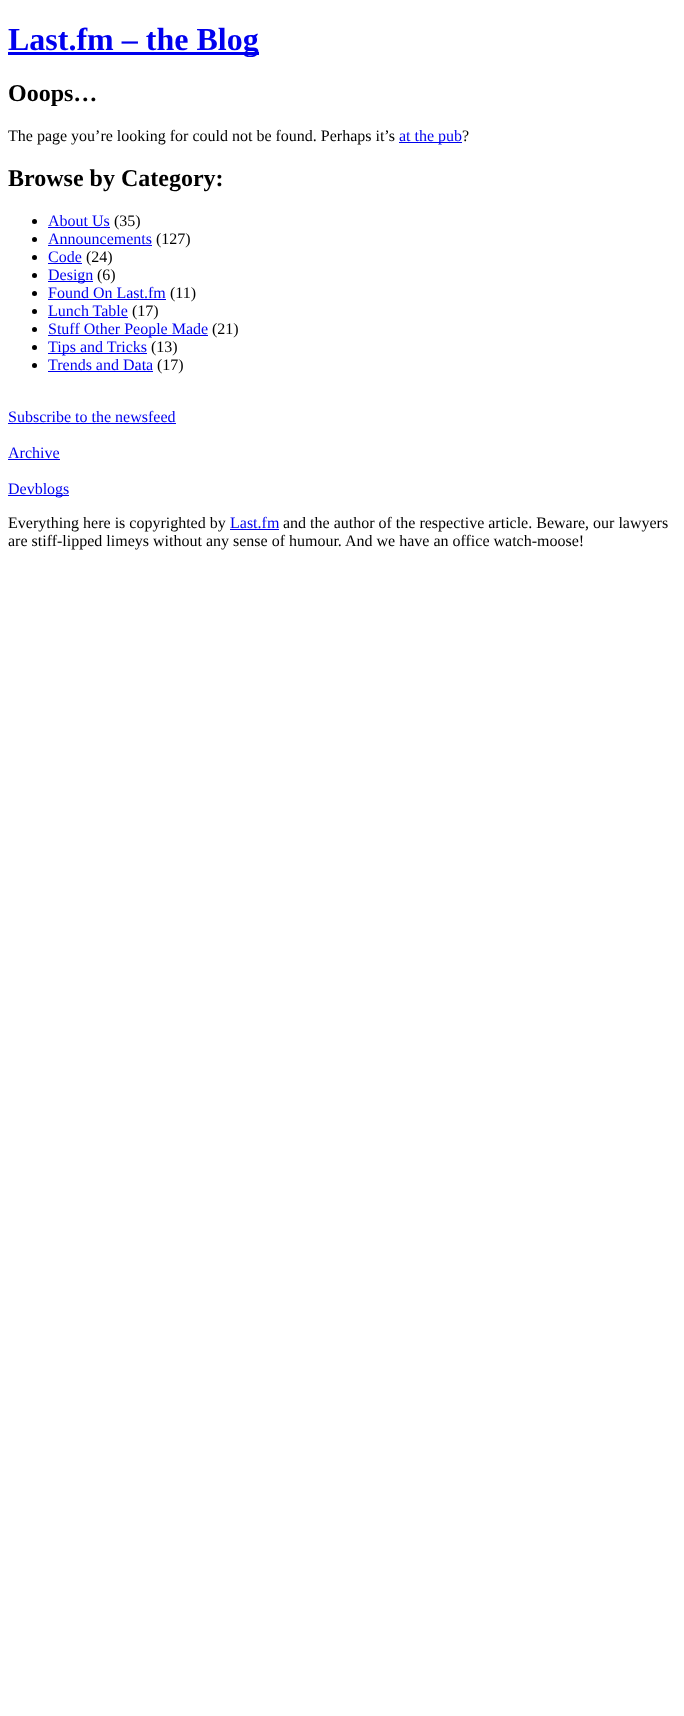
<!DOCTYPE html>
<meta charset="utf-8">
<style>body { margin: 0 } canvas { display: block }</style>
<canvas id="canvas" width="684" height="1716"></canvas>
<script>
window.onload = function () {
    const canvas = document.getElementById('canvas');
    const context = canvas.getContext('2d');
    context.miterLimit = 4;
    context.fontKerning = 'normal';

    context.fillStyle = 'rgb(255, 255, 255)';
    context.fillRect(0, 0, 684, 1716);
    context.fillStyle = 'rgb(0, 0, 238)';
    context.fillRect(8, 52, 251, 3);
    context.fillRect(399, 142, 63, 1);
    context.fillStyle = 'rgb(0, 0, 0)';
    context.beginPath();
    context.arc(34.5, 221.5, 2.5, 0, 2 * Math.PI);
    context.fill();
    context.fillStyle = 'rgb(0, 0, 238)';
    context.fillRect(48, 227, 62, 1);
    context.fillStyle = 'rgb(0, 0, 0)';
    context.beginPath();
    context.arc(34.5, 239.5, 2.5, 0, 2 * Math.PI);
    context.fill();
    context.fillStyle = 'rgb(0, 0, 238)';
    context.fillRect(48, 245, 104, 1);
    context.fillStyle = 'rgb(0, 0, 0)';
    context.beginPath();
    context.arc(34.5, 257.5, 2.5, 0, 2 * Math.PI);
    context.fill();
    context.fillStyle = 'rgb(0, 0, 238)';
    context.fillRect(48, 263, 34, 1);
    context.fillStyle = 'rgb(0, 0, 0)';
    context.beginPath();
    context.arc(34.5, 275.5, 2.5, 0, 2 * Math.PI);
    context.fill();
    context.fillStyle = 'rgb(0, 0, 238)';
    context.fillRect(48, 281, 45, 1);
    context.fillStyle = 'rgb(0, 0, 0)';
    context.beginPath();
    context.arc(34.5, 293.5, 2.5, 0, 2 * Math.PI);
    context.fill();
    context.fillStyle = 'rgb(0, 0, 238)';
    context.fillRect(48, 299, 118, 1);
    context.fillStyle = 'rgb(0, 0, 0)';
    context.beginPath();
    context.arc(34.5, 311.5, 2.5, 0, 2 * Math.PI);
    context.fill();
    context.fillStyle = 'rgb(0, 0, 238)';
    context.fillRect(48, 317, 80, 1);
    context.fillStyle = 'rgb(0, 0, 0)';
    context.beginPath();
    context.arc(34.5, 329.5, 2.5, 0, 2 * Math.PI);
    context.fill();
    context.fillStyle = 'rgb(0, 0, 238)';
    context.fillRect(48, 335, 160, 1);
    context.fillStyle = 'rgb(0, 0, 0)';
    context.beginPath();
    context.arc(34.5, 347.5, 2.5, 0, 2 * Math.PI);
    context.fill();
    context.fillStyle = 'rgb(0, 0, 238)';
    context.fillRect(48, 353, 99, 1);
    context.fillStyle = 'rgb(0, 0, 0)';
    context.beginPath();
    context.arc(34.5, 365.5, 2.5, 0, 2 * Math.PI);
    context.fill();
    context.fillStyle = 'rgb(0, 0, 238)';
    context.fillRect(48, 371, 105, 1);
    context.fillRect(8, 423, 168, 1);
    context.fillRect(8, 459, 52, 1);
    context.fillRect(8, 495, 61, 1);
    context.fillRect(230, 529, 49, 1);
    context.font = 'bold 32px Liberation Serif';
    context.fillText('Last.fm – the Blog', 8, 50);
    context.font = 'bold 24px Liberation Serif';
    context.fillStyle = 'rgb(0, 0, 0)';
    context.fillText('Ooops…', 8, 101);
    context.font = '16px Liberation Serif';
    context.fillText('The page you’re looking for could not be found. Perhaps it’s', 8, 141);
    context.fillStyle = 'rgb(0, 0, 238)';
    context.fillText('at the pub', 399, 141);
    context.fillStyle = 'rgb(0, 0, 0)';
    context.fillText('?', 462, 141);
    context.font = 'bold 24px Liberation Serif';
    context.fillText('Browse by Category:', 8, 186);
    context.font = '16px Liberation Serif';
    context.fillStyle = 'rgb(0, 0, 238)';
    context.fillText('About Us', 48, 226);
    context.fillStyle = 'rgb(0, 0, 0)';
    context.fillText('(35)', 114, 226);
    context.fillStyle = 'rgb(0, 0, 238)';
    context.fillText('Announcements', 48, 244);
    context.fillStyle = 'rgb(0, 0, 0)';
    context.fillText('(127)', 156, 244);
    context.fillStyle = 'rgb(0, 0, 238)';
    context.fillText('Code', 48, 262);
    context.fillStyle = 'rgb(0, 0, 0)';
    context.fillText('(24)', 86, 262);
    context.fillStyle = 'rgb(0, 0, 238)';
    context.fillText('Design', 48, 280);
    context.fillStyle = 'rgb(0, 0, 0)';
    context.fillText('(6)', 97, 280);
    context.fillStyle = 'rgb(0, 0, 238)';
    context.fillText('Found On Last.fm', 48, 298);
    context.fillStyle = 'rgb(0, 0, 0)';
    context.fillText('(11)', 170, 298);
    context.fillStyle = 'rgb(0, 0, 238)';
    context.fillText('Lunch Table', 48, 316);
    context.fillStyle = 'rgb(0, 0, 0)';
    context.fillText('(17)', 132, 316);
    context.fillStyle = 'rgb(0, 0, 238)';
    context.fillText('Stuff Other People Made', 48, 334);
    context.fillStyle = 'rgb(0, 0, 0)';
    context.fillText('(21)', 212, 334);
    context.fillStyle = 'rgb(0, 0, 238)';
    context.fillText('Tips and Tricks', 48, 352);
    context.fillStyle = 'rgb(0, 0, 0)';
    context.fillText('(13)', 151, 352);
    context.fillStyle = 'rgb(0, 0, 238)';
    context.fillText('Trends and Data', 48, 370);
    context.fillStyle = 'rgb(0, 0, 0)';
    context.fillText('(17)', 157, 370);
    context.fillStyle = 'rgb(0, 0, 238)';
    context.fillText('Subscribe to the newsfeed', 8, 422);
    context.fillText('Archive', 8, 458);
    context.fillText('Devblogs', 8, 494);
    context.fillStyle = 'rgb(0, 0, 0)';
    context.fillText('Everything here is copyrighted by', 8, 528);
    context.fillStyle = 'rgb(0, 0, 238)';
    context.fillText('Last.fm', 230, 528);
    context.fillStyle = 'rgb(0, 0, 0)';
    context.fillText('and the author of the respective article. Beware, our lawyers', 283, 528);
    context.fillText('are stiff-lipped limeys without any sense of humour. And we have an office watch-moose!', 8, 546);
};
</script>
